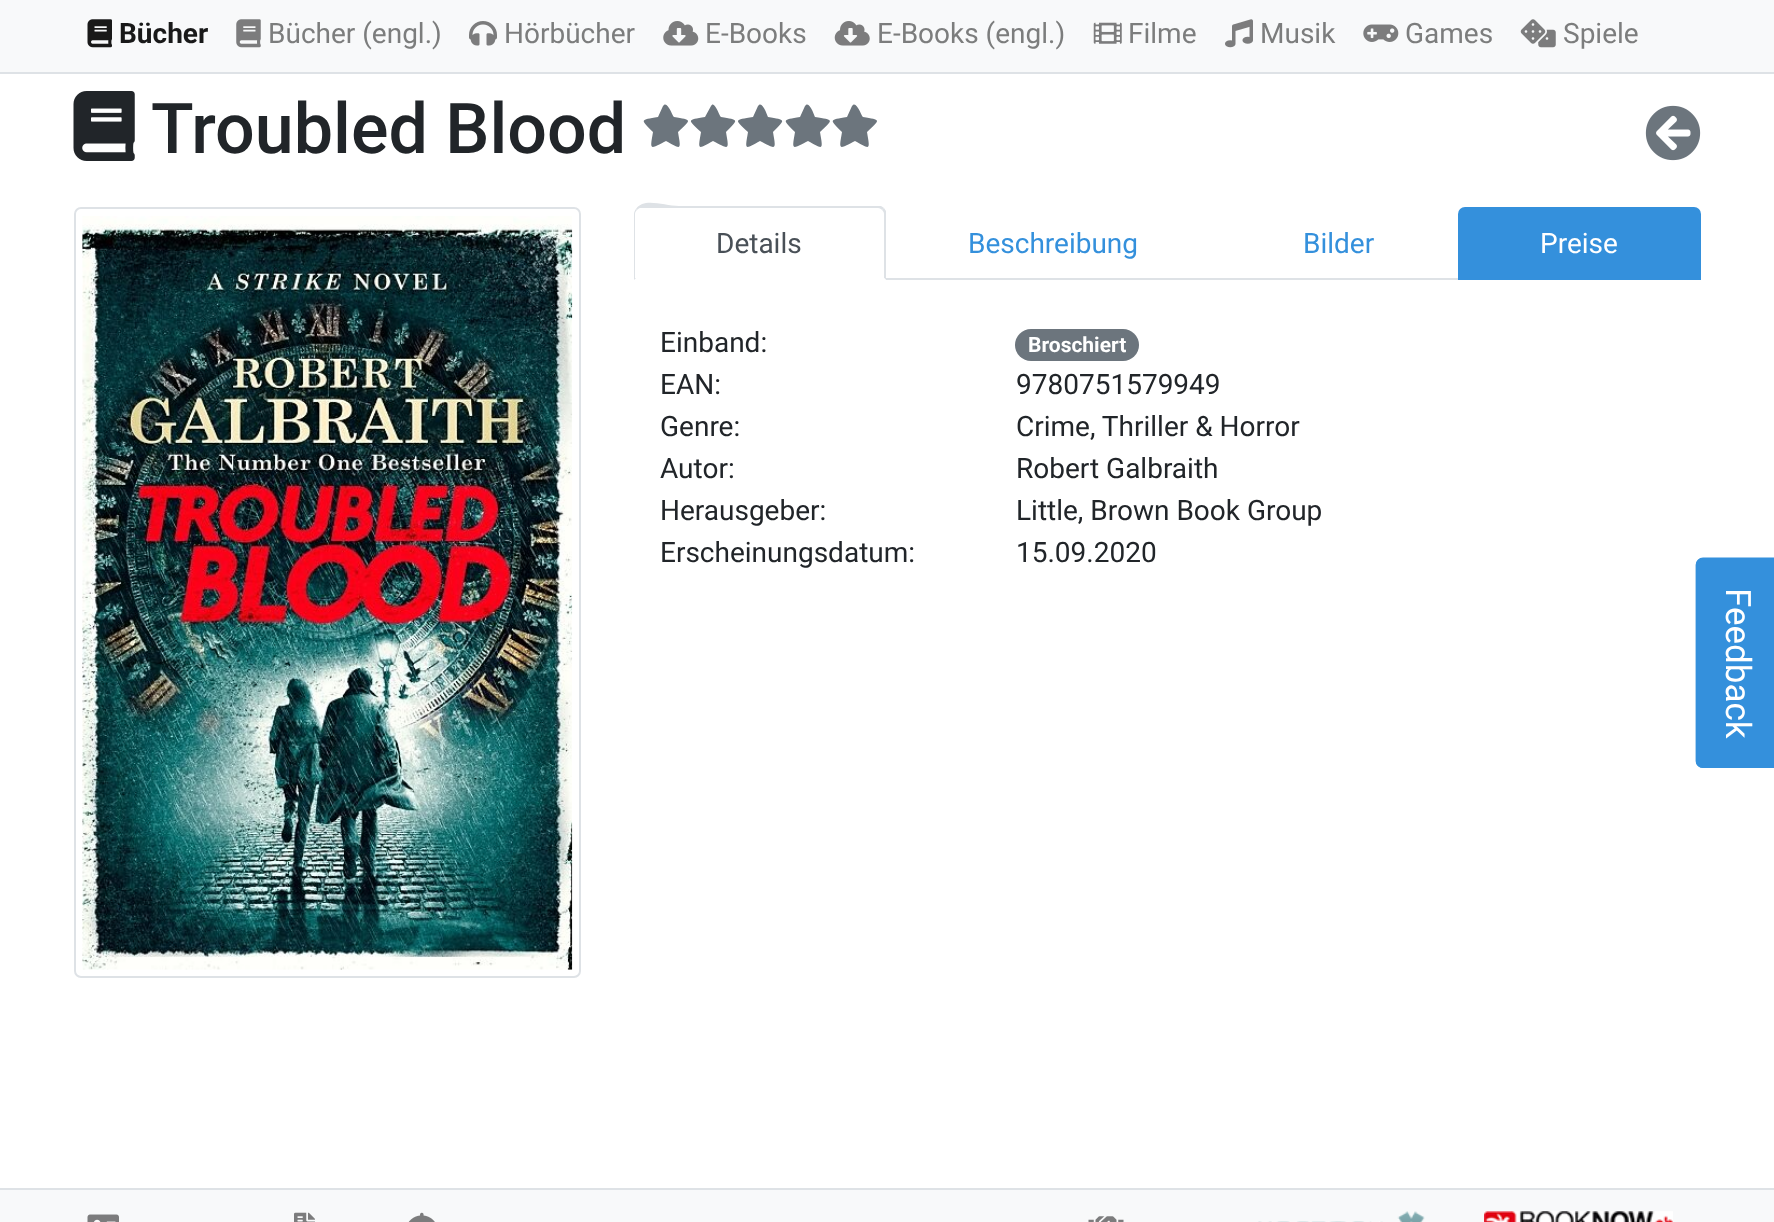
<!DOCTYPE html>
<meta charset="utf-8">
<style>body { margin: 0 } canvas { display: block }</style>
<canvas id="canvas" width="1774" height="1222"></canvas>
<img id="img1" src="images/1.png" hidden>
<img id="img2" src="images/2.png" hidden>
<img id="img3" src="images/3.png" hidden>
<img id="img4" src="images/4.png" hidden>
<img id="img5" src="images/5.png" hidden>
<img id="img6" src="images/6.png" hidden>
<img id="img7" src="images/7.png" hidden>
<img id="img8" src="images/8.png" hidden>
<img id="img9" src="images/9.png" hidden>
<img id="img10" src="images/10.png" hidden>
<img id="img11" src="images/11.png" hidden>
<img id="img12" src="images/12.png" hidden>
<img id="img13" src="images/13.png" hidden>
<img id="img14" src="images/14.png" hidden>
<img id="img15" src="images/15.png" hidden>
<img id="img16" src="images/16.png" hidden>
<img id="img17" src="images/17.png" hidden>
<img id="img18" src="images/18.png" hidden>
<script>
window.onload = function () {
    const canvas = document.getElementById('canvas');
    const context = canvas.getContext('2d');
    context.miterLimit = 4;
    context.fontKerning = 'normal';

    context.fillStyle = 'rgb(255, 255, 255)';
    context.fillRect(0, 0, 1774, 1222);
    context.fillStyle = 'rgb(248, 249, 250)';
    context.fillRect(0, 0, 1774, 72);
    context.fillStyle = 'rgb(222, 226, 230)';
    context.fillRect(0, 72, 1774, 2);
    context.drawImage(document.getElementById('img1'), 87, 19, 25, 29);
    context.drawImage(document.getElementById('img2'), 236, 19, 25, 29);
    context.drawImage(document.getElementById('img3'), 469, 21, 28, 25);
    context.drawImage(document.getElementById('img4'), 663, 21, 36, 25);
    context.drawImage(document.getElementById('img5'), 834, 21, 36, 25);
    context.drawImage(document.getElementById('img6'), 1093, 22, 29, 22);
    context.drawImage(document.getElementById('img7'), 1225, 19, 28, 29);
    context.drawImage(document.getElementById('img8'), 1363, 24, 36, 18);
    context.drawImage(document.getElementById('img9'), 1520, 19, 36, 29);
    context.drawImage(document.getElementById('img10'), 73, 91, 62, 70);
    context.fillStyle = 'rgb(108, 117, 125)';
    context.beginPath();
    context.moveTo(663, 106);
    context.bezierCurveTo(667, 99, 673, 117, 674, 117);
    context.bezierCurveTo(692, 120, 692, 119, 678, 132);
    context.bezierCurveTo(681, 150, 682, 150, 666, 141);
    context.bezierCurveTo(649, 150, 650, 150, 653, 132);
    context.bezierCurveTo(640, 119, 640, 120, 658, 117);
    context.closePath();
    context.fill();
    context.beginPath();
    context.moveTo(711, 106);
    context.bezierCurveTo(714, 99, 720, 117, 721, 117);
    context.bezierCurveTo(739, 120, 739, 119, 726, 132);
    context.bezierCurveTo(729, 150, 730, 150, 713, 141);
    context.bezierCurveTo(697, 150, 698, 150, 701, 132);
    context.bezierCurveTo(687, 119, 687, 120, 705, 117);
    context.closePath();
    context.fill();
    context.beginPath();
    context.moveTo(758, 106);
    context.bezierCurveTo(762, 99, 768, 117, 768, 117);
    context.bezierCurveTo(786, 120, 786, 119, 773, 132);
    context.bezierCurveTo(776, 150, 777, 150, 760, 141);
    context.bezierCurveTo(744, 150, 745, 150, 748, 132);
    context.bezierCurveTo(734, 119, 734, 120, 753, 117);
    context.closePath();
    context.fill();
    context.beginPath();
    context.moveTo(805, 106);
    context.bezierCurveTo(809, 99, 815, 117, 815, 117);
    context.bezierCurveTo(834, 120, 834, 119, 820, 132);
    context.bezierCurveTo(823, 150, 824, 150, 808, 141);
    context.bezierCurveTo(791, 150, 792, 150, 795, 132);
    context.bezierCurveTo(782, 119, 782, 120, 800, 117);
    context.closePath();
    context.fill();
    context.beginPath();
    context.moveTo(852, 106);
    context.bezierCurveTo(856, 99, 862, 117, 863, 117);
    context.bezierCurveTo(881, 120, 881, 119, 867, 132);
    context.bezierCurveTo(870, 150, 871, 150, 855, 141);
    context.bezierCurveTo(838, 150, 839, 150, 842, 132);
    context.bezierCurveTo(829, 119, 829, 120, 847, 117);
    context.closePath();
    context.fill();
    context.drawImage(document.getElementById('img11'), 1645, 105, 56, 56);
    context.beginPath();
    context.roundRect(75, 208, 505, 769, 6);
    context.strokeStyle = 'rgb(222, 226, 230)';
    context.lineWidth = 2;
    context.stroke();
    context.drawImage(document.getElementById('img12'), 82, 216, 491, 754);
    context.fillStyle = 'rgb(222, 226, 230)';
    context.fillRect(886, 278, 572, 2);
    context.beginPath();
    context.moveTo(640, 208);
    context.bezierCurveTo(639, 208, 638, 209, 637, 210);
    context.lineTo(636, 209);
    context.bezierCurveTo(644, 197, 664, 206, 679, 206);
    context.lineTo(881, 206);
    context.lineTo(884, 208);
    context.lineTo(882, 210);
    context.bezierCurveTo(881, 209, 880, 208, 878, 208);
    context.closePath();
    context.fill();
    context.beginPath();
    context.moveTo(886, 211);
    context.lineTo(886, 280);
    context.lineTo(884, 278);
    context.lineTo(884, 214);
    context.bezierCurveTo(884, 212, 883, 211, 882, 210);
    context.lineTo(884, 208);
    context.closePath();
    context.fill();
    context.fillStyle = 'rgb(255, 255, 255)';
    context.beginPath();
    context.moveTo(886, 280);
    context.lineTo(884, 278);
    context.lineTo(636, 278);
    context.lineTo(634, 280);
    context.closePath();
    context.fill();
    context.fillStyle = 'rgb(222, 226, 230)';
    context.beginPath();
    context.moveTo(634, 280);
    context.lineTo(634, 214);
    context.bezierCurveTo(634, 212, 635, 210, 636, 209);
    context.lineTo(637, 210);
    context.bezierCurveTo(636, 211, 635, 212, 635, 214);
    context.lineTo(635, 278);
    context.lineTo(636, 278);
    context.closePath();
    context.fill();
    context.fillStyle = 'rgb(52, 144, 220)';
    context.beginPath();
    context.roundRect(1458, 207, 243, 73, [7, 7, 0, 0]);
    context.fill();
    context.fillStyle = 'rgb(108, 117, 125)';
    context.beginPath();
    context.roundRect(1015, 329, 124, 32, 16);
    context.fill();
    context.fillStyle = 'rgb(52, 144, 220)';
    context.beginPath();
    context.moveTo(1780, 558);
    context.lineTo(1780, 768);
    context.lineTo(1703, 768);
    context.bezierCurveTo(1699, 768, 1696, 765, 1696, 761);
    context.lineTo(1696, 565);
    context.bezierCurveTo(1696, 561, 1699, 558, 1703, 558);
    context.closePath();
    context.fill();
    context.beginPath();
    context.moveTo(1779, 558.5);
    context.lineTo(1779, 767);
    context.lineTo(1703, 767);
    context.bezierCurveTo(1699.5, 767, 1696.5, 764.5, 1696.5, 761);
    context.lineTo(1696.5, 565);
    context.bezierCurveTo(1696.5, 561.5, 1699.5, 558.5, 1703, 558.5);
    context.closePath();
    context.strokeStyle = 'rgb(52, 144, 220)';
    context.lineWidth = 1.8;
    context.stroke();
    context.fillStyle = 'rgb(248, 249, 250)';
    context.fillRect(0, 1190, 1774, 32);
    context.fillStyle = 'rgb(222, 226, 230)';
    context.fillRect(0, 1188, 1774, 2);
    context.drawImage(document.getElementById('img13'), 87, 1214, 32, 8);
    context.drawImage(document.getElementById('img14'), 294, 1212, 21, 10);
    context.drawImage(document.getElementById('img15'), 408, 1212, 27, 10);
    context.drawImage(document.getElementById('img16'), 1088, 1216, 36, 6);
    context.drawImage(document.getElementById('img17'), 1258, 1211, 167, 11);
    context.drawImage(document.getElementById('img18'), 1484, 1211, 189, 11);
    context.font = 'bold 28px Roboto';
    context.fillStyle = 'rgb(25, 25, 25)';
    context.fillText('Bücher', 119, 43);
    context.font = '28px Roboto';
    context.fillStyle = 'rgb(124, 125, 125)';
    context.fillText('Bücher (engl.)', 268, 43);
    context.fillText('Hörbücher', 504, 43);
    context.fillText('E-Books', 705, 43);
    context.fillText('E-Books (engl.)', 877, 43);
    context.fillText('Filme', 1128, 43);
    context.fillText('Musik', 1260, 43);
    context.fillText('Games', 1405, 43);
    context.fillText('Spiele', 1563, 43);
    context.font = '500 70px Roboto';
    context.fillStyle = 'rgb(33, 37, 41)';
    context.fillText('Troubled Blood', 151, 153);
    context.font = '28px Roboto';
    context.fillStyle = 'rgb(73, 80, 87)';
    context.fillText('Details', 716, 253);
    context.fillStyle = 'rgb(52, 144, 220)';
    context.fillText('Beschreibung', 968, 253);
    context.fillText('Bilder', 1303, 253);
    context.fillStyle = 'rgb(255, 255, 255)';
    context.fillText('Preise', 1540, 253);
    context.fillStyle = 'rgb(33, 37, 41)';
    context.fillText('Einband:', 660, 352);
    context.font = 'bold 21px Roboto';
    context.fillStyle = 'rgb(255, 255, 255)';
    context.fillText('Broschiert', 1028, 352);
    context.font = '28px Roboto';
    context.fillStyle = 'rgb(33, 37, 41)';
    context.fillText('EAN:', 660, 394);
    context.fillText('9780751579949', 1016, 394);
    context.fillText('Genre:', 660, 436);
    context.fillText('Crime, Thriller & Horror', 1016, 436);
    context.fillText('Autor:', 660, 478);
    context.fillText('Robert Galbraith', 1016, 478);
    context.fillText('Herausgeber:', 660, 520);
    context.fillText('Little, Brown Book Group', 1016, 520);
    context.fillText('Erscheinungsdatum:', 660, 562);
    context.fillText('15.09.2020', 1016, 562);
    context.font = '35px Roboto';
    context.fillStyle = 'rgb(255, 255, 255)';
    context.save();
    context.translate(1726, 588);
    context.rotate(90 * Math.PI / 180);
    context.fillText('Feedback', 0, 0);
    context.restore();
};
</script>
